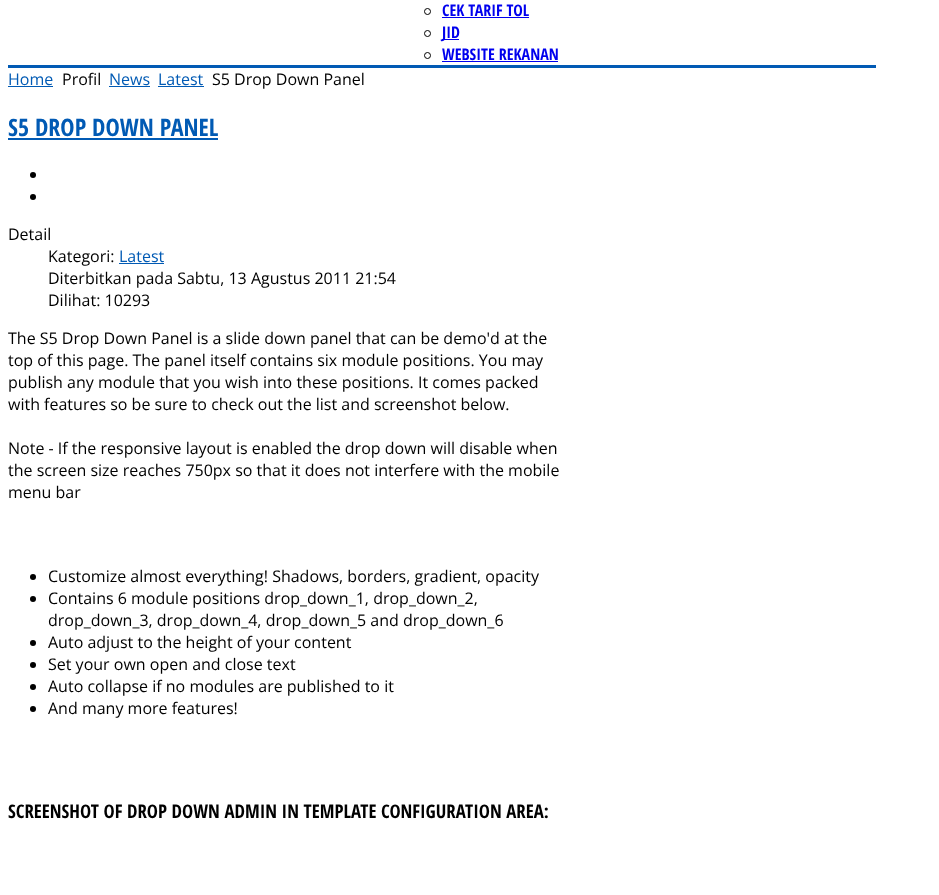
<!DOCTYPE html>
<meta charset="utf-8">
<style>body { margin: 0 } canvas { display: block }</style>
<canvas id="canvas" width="939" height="895"></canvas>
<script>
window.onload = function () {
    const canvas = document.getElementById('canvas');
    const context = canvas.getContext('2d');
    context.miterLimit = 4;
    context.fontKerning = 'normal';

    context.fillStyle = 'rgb(255, 255, 255)';
    context.fillRect(0, 0, 939, 895);
    context.fillStyle = 'rgb(1, 90, 180)';
    context.fillRect(8, 65, 868, 3);
    context.beginPath();
    context.arc(427.5, 11.5, 3, 0, 2 * Math.PI);
    context.strokeStyle = 'rgb(0, 0, 0)';
    context.stroke();
    context.fillStyle = 'rgb(0, 0, 238)';
    context.fillRect(442, 17, 87, 1);
    context.beginPath();
    context.arc(427.5, 33.5, 3, 0, 2 * Math.PI);
    context.stroke();
    context.fillRect(442, 39, 17, 1);
    context.beginPath();
    context.arc(427.5, 55.5, 3, 0, 2 * Math.PI);
    context.stroke();
    context.fillRect(442, 61, 116, 1);
    context.fillStyle = 'rgb(1, 90, 180)';
    context.fillRect(8, 86, 45, 1);
    context.fillRect(109, 86, 41, 1);
    context.fillRect(158, 86, 46, 1);
    context.fillRect(8, 138, 210, 2);
    context.fillStyle = 'rgb(0, 0, 0)';
    context.beginPath();
    context.arc(33, 175, 3, 0, 2 * Math.PI);
    context.fill();
    context.beginPath();
    context.arc(33, 197, 3, 0, 2 * Math.PI);
    context.fill();
    context.fillStyle = 'rgb(1, 90, 180)';
    context.fillRect(119, 263, 45, 1);
    context.fillStyle = 'rgb(0, 0, 0)';
    context.beginPath();
    context.arc(33, 577, 3, 0, 2 * Math.PI);
    context.fill();
    context.beginPath();
    context.arc(33, 599, 3, 0, 2 * Math.PI);
    context.fill();
    context.beginPath();
    context.arc(33, 643, 3, 0, 2 * Math.PI);
    context.fill();
    context.beginPath();
    context.arc(33, 665, 3, 0, 2 * Math.PI);
    context.fill();
    context.beginPath();
    context.arc(33, 687, 3, 0, 2 * Math.PI);
    context.fill();
    context.beginPath();
    context.arc(33, 709, 3, 0, 2 * Math.PI);
    context.fill();
    context.font = 'bold 16px Open Sans Condensed';
    context.fillStyle = 'rgb(0, 0, 238)';
    context.fillText('CEK TARIF TOL', 442, 16);
    context.fillText('JID', 442, 38);
    context.fillText('WEBSITE REKANAN', 442, 60);
    context.font = '16px Open Sans';
    context.fillStyle = 'rgb(1, 90, 180)';
    context.fillText('Home', 8, 85);
    context.fillStyle = 'rgb(0, 0, 0)';
    context.fillText('Profil', 62, 85);
    context.fillStyle = 'rgb(1, 90, 180)';
    context.fillText('News', 109, 85);
    context.fillText('Latest', 158, 85);
    context.fillStyle = 'rgb(0, 0, 0)';
    context.fillText('S5 Drop Down Panel', 212, 85);
    context.font = 'bold 24px Open Sans Condensed';
    context.fillStyle = 'rgb(1, 90, 180)';
    context.fillText('S5 DROP DOWN PANEL', 8, 136);
    context.font = '16px Open Sans';
    context.fillStyle = 'rgb(0, 0, 0)';
    context.fillText('Detail', 8, 240);
    context.fillText('Kategori:', 48, 262);
    context.fillStyle = 'rgb(1, 90, 180)';
    context.fillText('Latest', 119, 262);
    context.fillStyle = 'rgb(0, 0, 0)';
    context.fillText('Diterbitkan pada Sabtu, 13 Agustus 2011 21:54', 48, 284);
    context.fillText('Dilihat: 10293', 48, 306);
    context.fillText('The S5 Drop Down Panel is a slide down panel that can be demo\'d at the', 8, 344);
    context.fillText('top of this page. The panel itself contains six module positions. You may', 8, 366);
    context.fillText('publish any module that you wish into these positions. It comes packed', 8, 388);
    context.fillText('with features so be sure to check out the list and screenshot below.', 8, 410);
    context.fillText('Note - If the responsive layout is enabled the drop down will disable when', 8, 454);
    context.fillText('the screen size reaches 750px so that it does not interfere with the mobile', 8, 476);
    context.fillText('menu bar', 8, 498);
    context.fillText('Customize almost everything! Shadows, borders, gradient, opacity', 48, 582);
    context.fillText('Contains 6 module positions drop_down_1, drop_down_2,', 48, 604);
    context.fillText('drop_down_3, drop_down_4, drop_down_5 and drop_down_6', 48, 626);
    context.fillText('Auto adjust to the height of your content', 48, 648);
    context.fillText('Set your own open and close text', 48, 670);
    context.fillText('Auto collapse if no modules are published to it', 48, 692);
    context.fillText('And many more features!', 48, 714);
    context.font = 'bold 18.75px Open Sans Condensed';
    context.fillText('SCREENSHOT OF DROP DOWN ADMIN IN TEMPLATE CONFIGURATION AREA:', 8, 818);
};
</script>
